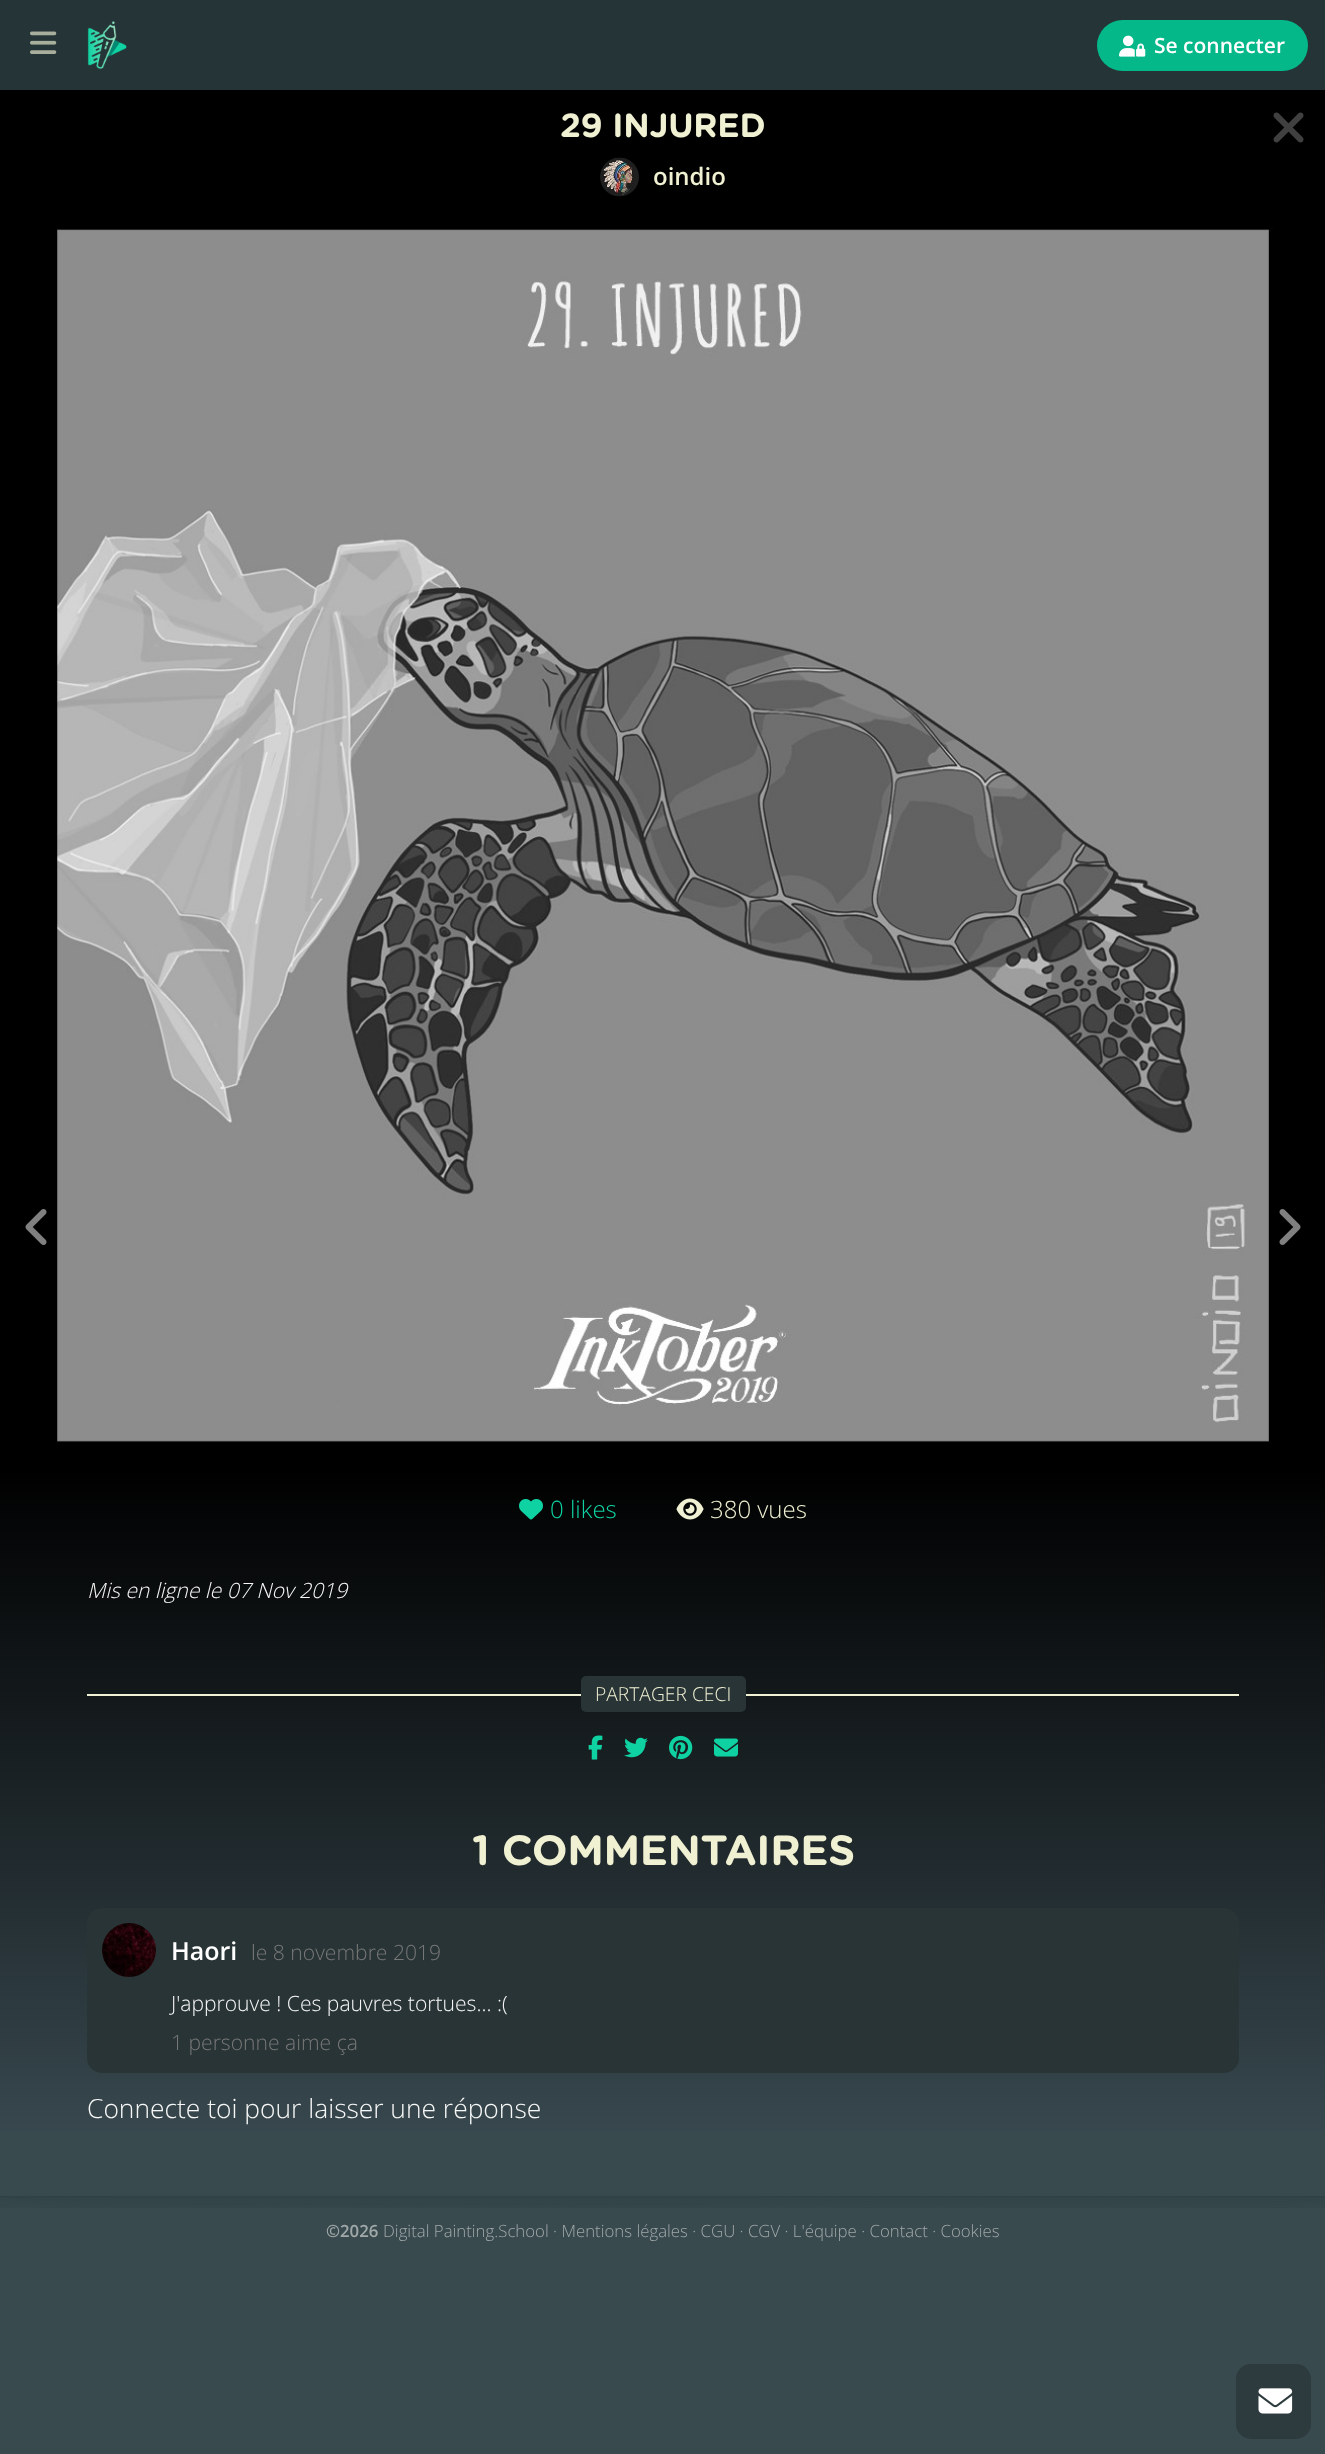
<!DOCTYPE html>
<meta charset="utf-8">
<style>body { margin: 0 } canvas { display: block }</style>
<canvas id="canvas" width="1325" height="2454"></canvas>
<img id="img1" src="images/1.png" hidden>
<img id="img2" src="images/2.png" hidden>
<img id="img3" src="images/3.png" hidden>
<img id="img4" src="images/4.png" hidden>
<img id="img5" src="images/5.png" hidden>
<img id="img6" src="images/6.png" hidden>
<img id="img7" src="images/7.png" hidden>
<img id="img8" src="images/8.png" hidden>
<img id="img9" src="images/9.png" hidden>
<img id="img10" src="images/10.png" hidden>
<img id="img11" src="images/11.png" hidden>
<img id="img12" src="images/12.png" hidden>
<img id="img13" src="images/13.png" hidden>
<img id="img14" src="images/14.png" hidden>
<img id="img15" src="images/15.png" hidden>
<img id="img16" src="images/16.png" hidden>
<img id="img17" src="images/17.png" hidden>
<script>
window.onload = function () {
    const canvas = document.getElementById('canvas');
    const context = canvas.getContext('2d');
    context.miterLimit = 4;
    context.fontKerning = 'normal';
    let gradient;

    context.fillStyle = 'rgb(56, 74, 78)';
    context.fillRect(0, 0, 1325, 2454);
    context.fillStyle = 'rgb(37, 52, 55)';
    context.fillRect(0, 0, 1325, 90);
    context.drawImage(document.getElementById('img1'), 30, 31, 27, 23);
    context.drawImage(document.getElementById('img2'), 87, 21, 40, 48);
    context.fillStyle = 'rgb(4, 184, 137)';
    context.beginPath();
    context.roundRect(1097, 20, 211, 51, 25.5);
    context.fill();
    context.drawImage(document.getElementById('img3'), 1119, 35, 27, 22);
    context.fillStyle = 'rgb(0, 0, 0)';
    context.fillRect(0, 90, 1325, 1379);
    context.drawImage(document.getElementById('img4'), 1273, 112, 31, 31);
    context.drawImage(document.getElementById('img5'), 25, 1209, 22, 36);
    context.drawImage(document.getElementById('img6'), 1279, 1209, 22, 36);
    context.drawImage(document.getElementById('img7'), 600, 157, 39, 40);
    context.drawImage(document.getElementById('img8'), 56, 227, 1217, 1218);
    gradient = context.createLinearGradient(663, 1469, 663, 2196);
    gradient.addColorStop(0, 'rgb(0, 0, 0)');
    gradient.addColorStop(0.93, 'rgb(56, 73, 79)');
    context.fillStyle = gradient;
    context.fillRect(0, 1469, 1325, 662);
    context.drawImage(document.getElementById('img9'), 519, 1499, 24, 21);
    context.drawImage(document.getElementById('img10'), 676, 1498, 28, 22);
    context.fillStyle = 'rgb(241, 241, 213)';
    context.fillRect(87, 1694, 1152, 2);
    context.fillStyle = 'rgb(41, 52, 54)';
    context.beginPath();
    context.roundRect(581, 1676, 165, 36, 5);
    context.fill();
    context.drawImage(document.getElementById('img11'), 588, 1735, 15, 25);
    context.drawImage(document.getElementById('img12'), 624, 1737, 24, 21);
    context.drawImage(document.getElementById('img13'), 669, 1735, 24, 25);
    context.drawImage(document.getElementById('img14'), 714, 1738, 24, 19);
    context.beginPath();
    context.roundRect(87, 1908, 1152, 165, 15);
    context.fill();
    context.drawImage(document.getElementById('img15'), 102, 1923, 54, 54);
    context.drawImage(document.getElementById('img16'), 0, 2196, 1325, 12);
    context.fillStyle = 'rgb(45, 59, 62)';
    context.beginPath();
    context.roundRect(1236, 2364, 75, 75, 15);
    context.fill();
    context.drawImage(document.getElementById('img17'), 1258, 2388, 35, 26);
    context.font = '600 21px Open Sans';
    context.fillStyle = 'rgb(255, 255, 255)';
    context.fillText('Se connecter', 1154, 53);
    context.letterSpacing = '-0.25px';
    context.font = 'bold 33.5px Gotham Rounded';
    context.fillStyle = 'rgb(240, 240, 210)';
    context.fillText('29 INJURED', 560, 137);
    context.letterSpacing = '0px';
    context.font = '600 24px Open Sans';
    context.fillText('oindio', 653, 185);
    context.font = '300 24px Open Sans';
    context.fillStyle = 'rgb(15, 210, 163)';
    context.fillText('0 likes', 550, 1518);
    context.fillStyle = 'rgb(240, 240, 210)';
    context.fillText('380 vues', 710, 1518);
    context.font = 'italic 300 21.1px Open Sans';
    context.fillStyle = 'rgb(247, 247, 247)';
    context.fillText('Mis en ligne le 07 Nov 2019', 87, 1598);
    context.font = '300 19.25px Open Sans';
    context.fillStyle = 'rgb(240, 240, 210)';
    context.fillText('PARTAGER CECI', 595, 1701);
    context.letterSpacing = '-0.4px';
    context.font = 'bold 42.25px Gotham Rounded';
    context.fillText('1 COMMENTAIRES', 472, 1865);
    context.letterSpacing = '0px';
    context.font = '600 25px Open Sans';
    context.fillStyle = 'rgb(255, 255, 255)';
    context.fillText('Haori', 171, 1960);
    context.font = '300 21.1px Open Sans';
    context.fillStyle = 'rgb(119, 119, 119)';
    context.fillText('le 8 novembre 2019', 251, 1960);
    context.fillStyle = 'rgb(247, 247, 247)';
    context.fillText('J\'approuve ! Ces pauvres tortues... :(', 171, 2011);
    context.fillStyle = 'rgb(119, 119, 119)';
    context.fillText('1 personne aime ça', 171, 2050);
    context.font = '300 26.4px Open Sans';
    context.fillStyle = 'rgb(247, 247, 247)';
    context.fillText('Connecte toi pour laisser une réponse', 87, 2118);
    context.font = '600 16.8px Open Sans';
    context.fillStyle = 'rgb(161, 168, 169)';
    context.fillText('©2026', 326, 2237);
    context.font = '300 16.8px Open Sans';
    context.fillText('Digital Painting.School · Mentions légales · CGU · CGV · L\'équipe · Contact · Cookies', 383, 2237);
};
</script>
